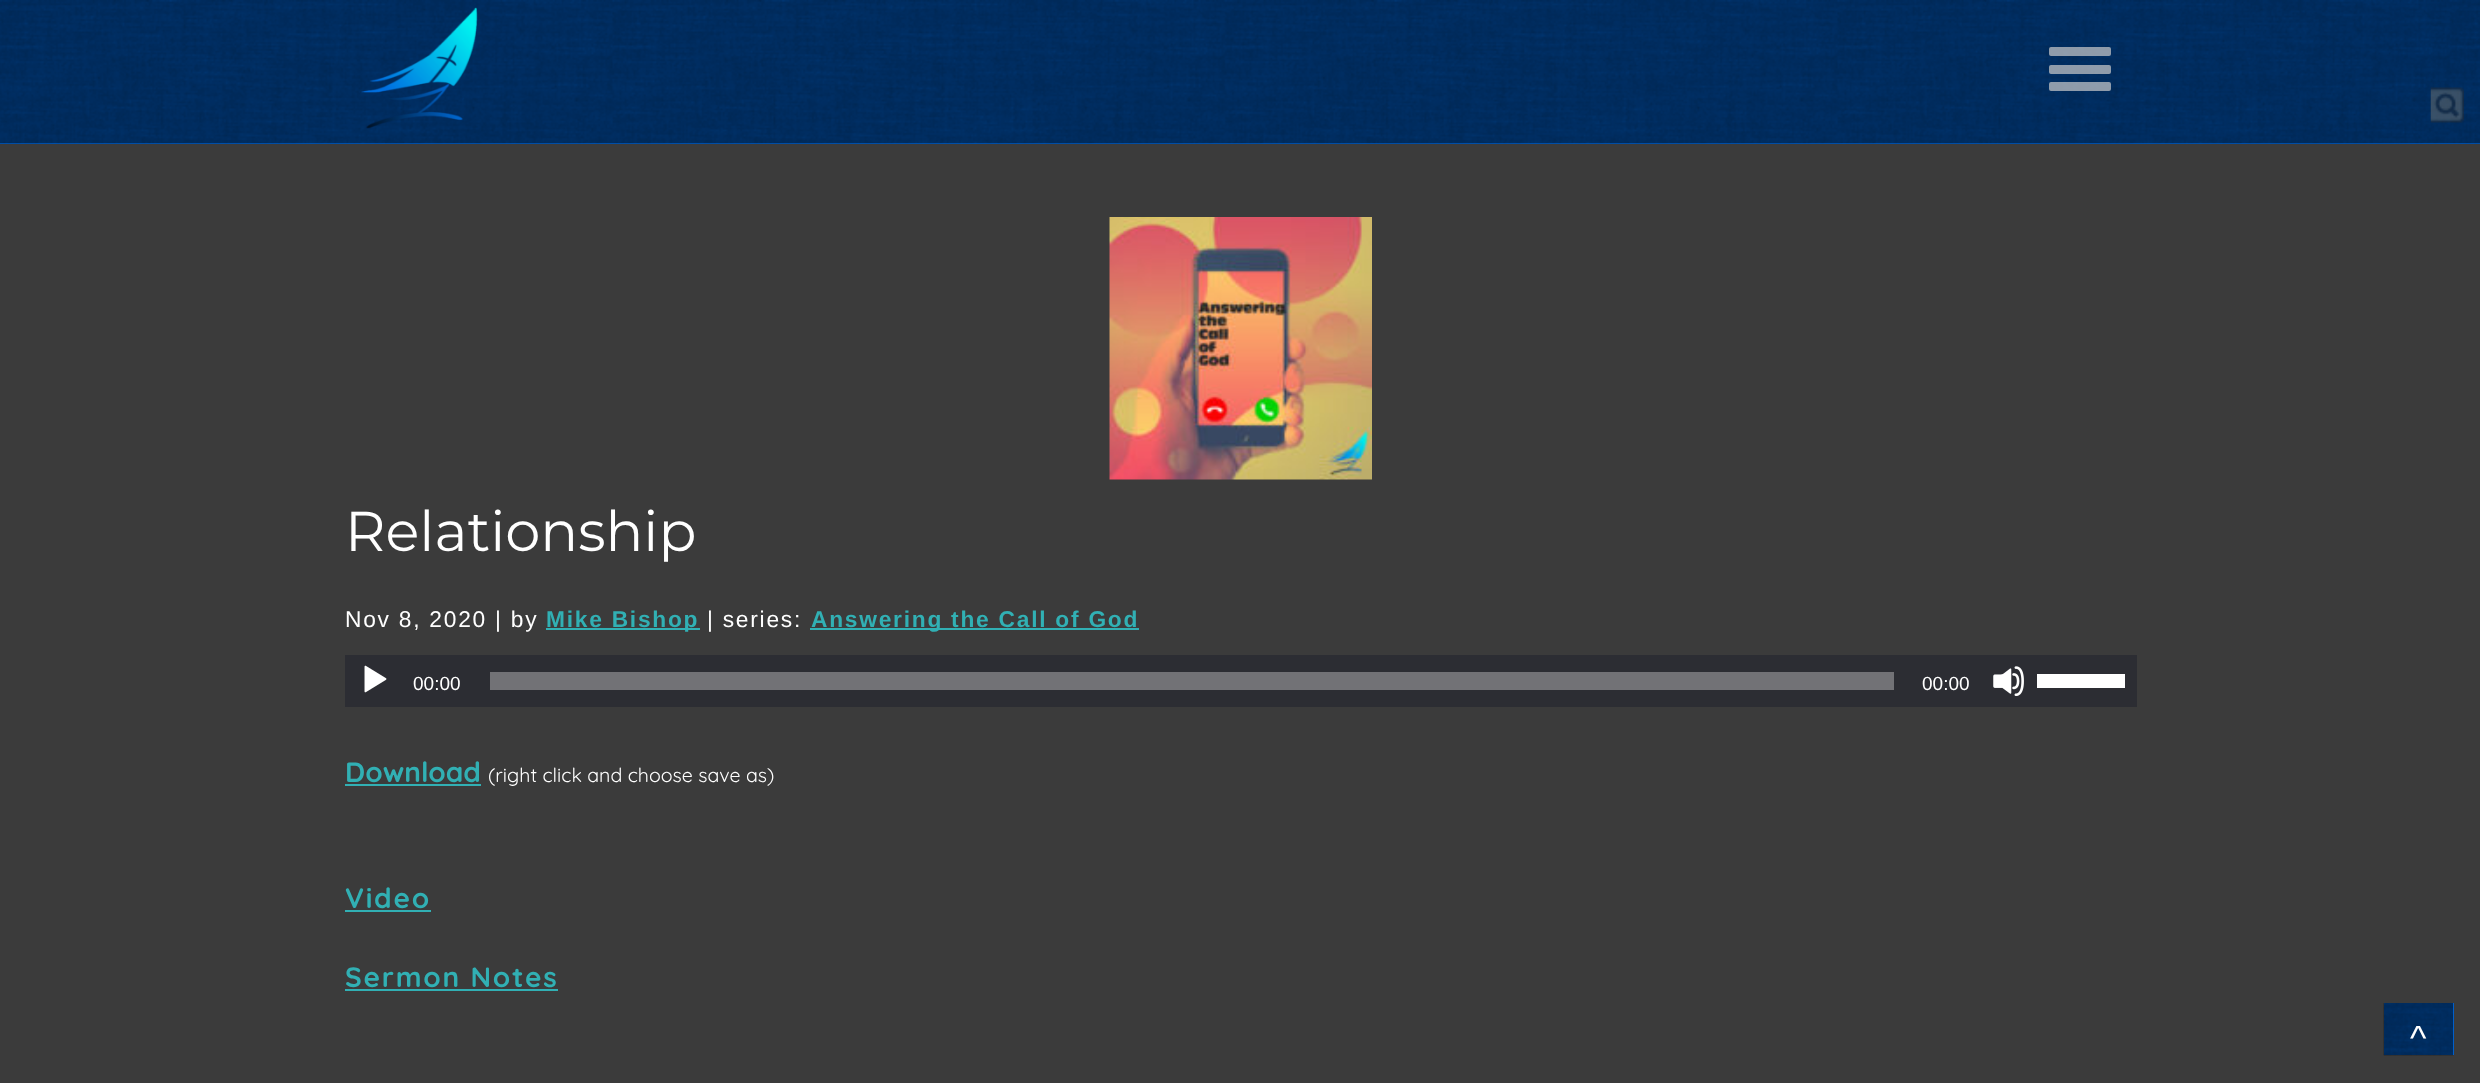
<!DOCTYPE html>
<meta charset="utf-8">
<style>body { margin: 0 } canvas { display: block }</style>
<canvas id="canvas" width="2480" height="1083"></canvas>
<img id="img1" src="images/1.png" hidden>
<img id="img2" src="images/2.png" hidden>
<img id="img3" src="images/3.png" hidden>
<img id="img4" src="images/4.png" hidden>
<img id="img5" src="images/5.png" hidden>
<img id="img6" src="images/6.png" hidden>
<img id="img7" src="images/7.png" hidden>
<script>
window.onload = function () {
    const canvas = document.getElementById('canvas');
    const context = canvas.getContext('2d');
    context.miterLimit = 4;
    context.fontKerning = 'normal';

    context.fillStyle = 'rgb(59, 59, 59)';
    context.fillRect(0, 0, 2480, 1083);
    context.fillStyle = 'rgb(0, 112, 239)';
    context.fillRect(0, 0, 2480, 144);
    context.drawImage(document.getElementById('img1'), 0, 0, 2480, 144);
    context.drawImage(document.getElementById('img2'), 361, 7, 117, 122);
    context.fillStyle = 'rgba(204, 204, 204, 0.7)';
    context.beginPath();
    context.roundRect(2049, 65, 62, 9, 2);
    context.fill();
    context.beginPath();
    context.roundRect(2049, 47, 62, 9, 2);
    context.fill();
    context.beginPath();
    context.roundRect(2049, 82, 62, 9, 2);
    context.fill();
    context.drawImage(document.getElementById('img3'), 2430, 87, 34, 36);
    context.drawImage(document.getElementById('img4'), 1109, 217, 263, 263);
    context.fillStyle = 'rgb(49, 176, 180)';
    context.fillRect(546, 628, 154, 2);
    context.fillRect(810, 628, 329, 2);
    context.fillStyle = 'rgb(44, 45, 51)';
    context.fillRect(345, 655, 1792, 52);
    context.drawImage(document.getElementById('img5'), 364, 665, 23, 28);
    context.fillStyle = 'rgb(114, 114, 118)';
    context.fillRect(490, 672, 1404, 18);
    context.drawImage(document.getElementById('img6'), 1993, 666, 31, 30);
    context.fillStyle = 'rgb(255, 255, 255)';
    context.fillRect(2037, 674, 88, 14);
    context.fillStyle = 'rgb(49, 176, 180)';
    context.fillRect(345, 784, 136, 2);
    context.fillRect(345, 910, 86, 2);
    context.fillRect(345, 989, 213, 2);
    context.fillStyle = 'rgb(0, 112, 239)';
    context.fillRect(2384, 1003, 70, 52);
    context.drawImage(document.getElementById('img7'), 2383, 1003, 71, 53);
    context.font = '56px Montserrat';
    context.fillStyle = 'rgb(255, 255, 255)';
    context.fillText('Relationship', 345, 551);
    context.letterSpacing = '1.75px';
    context.font = '22.75px Liberation Sans';
    context.fillText('Nov 8, 2020 | by', 345, 627);
    context.font = 'bold 22.75px Liberation Sans';
    context.fillStyle = 'rgb(49, 176, 180)';
    context.fillText('Mike Bishop', 546, 627);
    context.font = '22.75px Liberation Sans';
    context.fillStyle = 'rgb(255, 255, 255)';
    context.fillText('| series:', 707, 627);
    context.font = 'bold 22.75px Liberation Sans';
    context.fillStyle = 'rgb(49, 176, 180)';
    context.fillText('Answering the Call of God', 811, 627);
    context.letterSpacing = '0px';
    context.font = '19px Liberation Sans';
    context.fillStyle = 'rgb(255, 255, 255)';
    context.fillText('00:00', 413, 690);
    context.fillText('00:00', 1922, 690);
    context.font = 'bold 28px Quicksand';
    context.fillStyle = 'rgb(49, 176, 180)';
    context.fillText('Download', 345, 782);
    context.font = '19.6px Quicksand';
    context.fillStyle = 'rgb(255, 255, 255)';
    context.fillText('(right click and choose save as)', 488, 782);
    context.letterSpacing = '1.75px';
    context.font = 'bold 28px Quicksand';
    context.fillStyle = 'rgb(49, 176, 180)';
    context.fillText('Video', 345, 908);
    context.fillText('Sermon Notes', 345, 987);
    context.letterSpacing = '0px';
    context.font = '35px Liberation Sans';
    context.fillStyle = 'rgb(255, 255, 255)';
    context.fillText('^', 2410, 1050);
};
</script>
